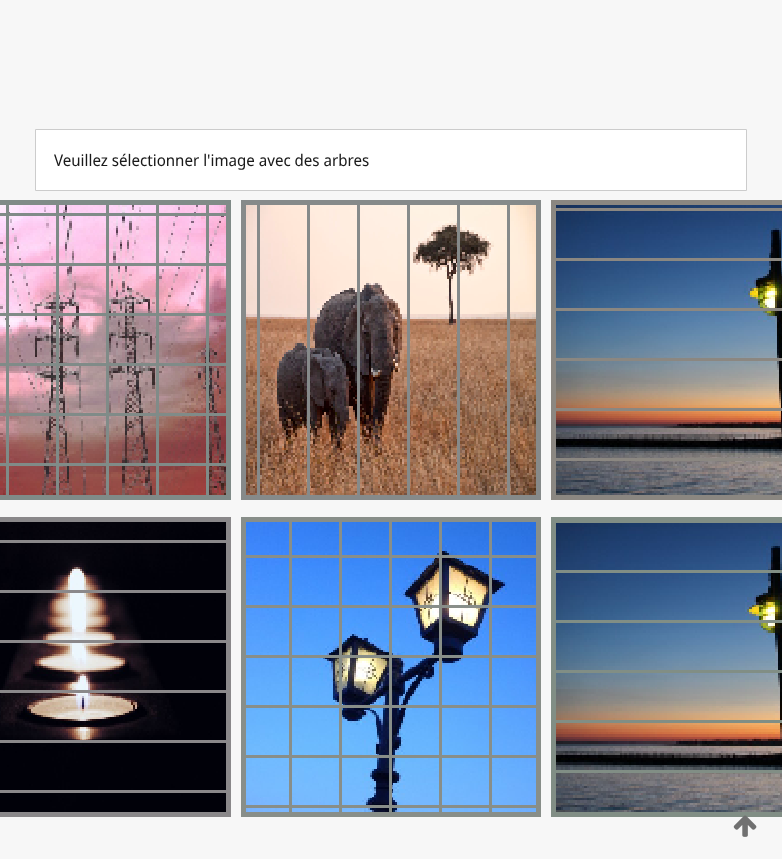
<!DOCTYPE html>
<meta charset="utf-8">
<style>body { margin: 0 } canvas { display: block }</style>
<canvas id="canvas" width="782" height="859"></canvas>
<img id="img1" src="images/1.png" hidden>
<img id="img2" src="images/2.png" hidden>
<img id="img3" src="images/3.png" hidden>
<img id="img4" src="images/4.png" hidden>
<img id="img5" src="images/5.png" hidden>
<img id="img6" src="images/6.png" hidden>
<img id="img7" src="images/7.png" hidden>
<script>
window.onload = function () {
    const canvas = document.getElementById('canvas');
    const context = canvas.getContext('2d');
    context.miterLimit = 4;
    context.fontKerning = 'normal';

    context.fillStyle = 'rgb(247, 247, 247)';
    context.fillRect(0, 0, 782, 859);
    context.fillStyle = 'rgb(255, 255, 255)';
    context.beginPath();
    context.rect(35.5, 129.5, 711, 61);
    context.fill();
    context.strokeStyle = 'rgb(204, 204, 204)';
    context.stroke();
    context.drawImage(document.getElementById('img1'), 0, 200, 231, 300);
    context.drawImage(document.getElementById('img2'), 241, 200, 300, 300);
    context.drawImage(document.getElementById('img3'), 551, 200, 231, 300);
    context.drawImage(document.getElementById('img4'), 0, 517, 231, 300);
    context.drawImage(document.getElementById('img5'), 241, 517, 300, 300);
    context.drawImage(document.getElementById('img6'), 551, 517, 231, 300);
    context.drawImage(document.getElementById('img7'), 733, 815, 24, 22);
    context.font = '16px Noto Sans Display';
    context.fillStyle = 'rgb(26, 26, 26)';
    context.fillText('Veuillez sélectionner l\'image avec des arbres', 54, 166);
};
</script>
